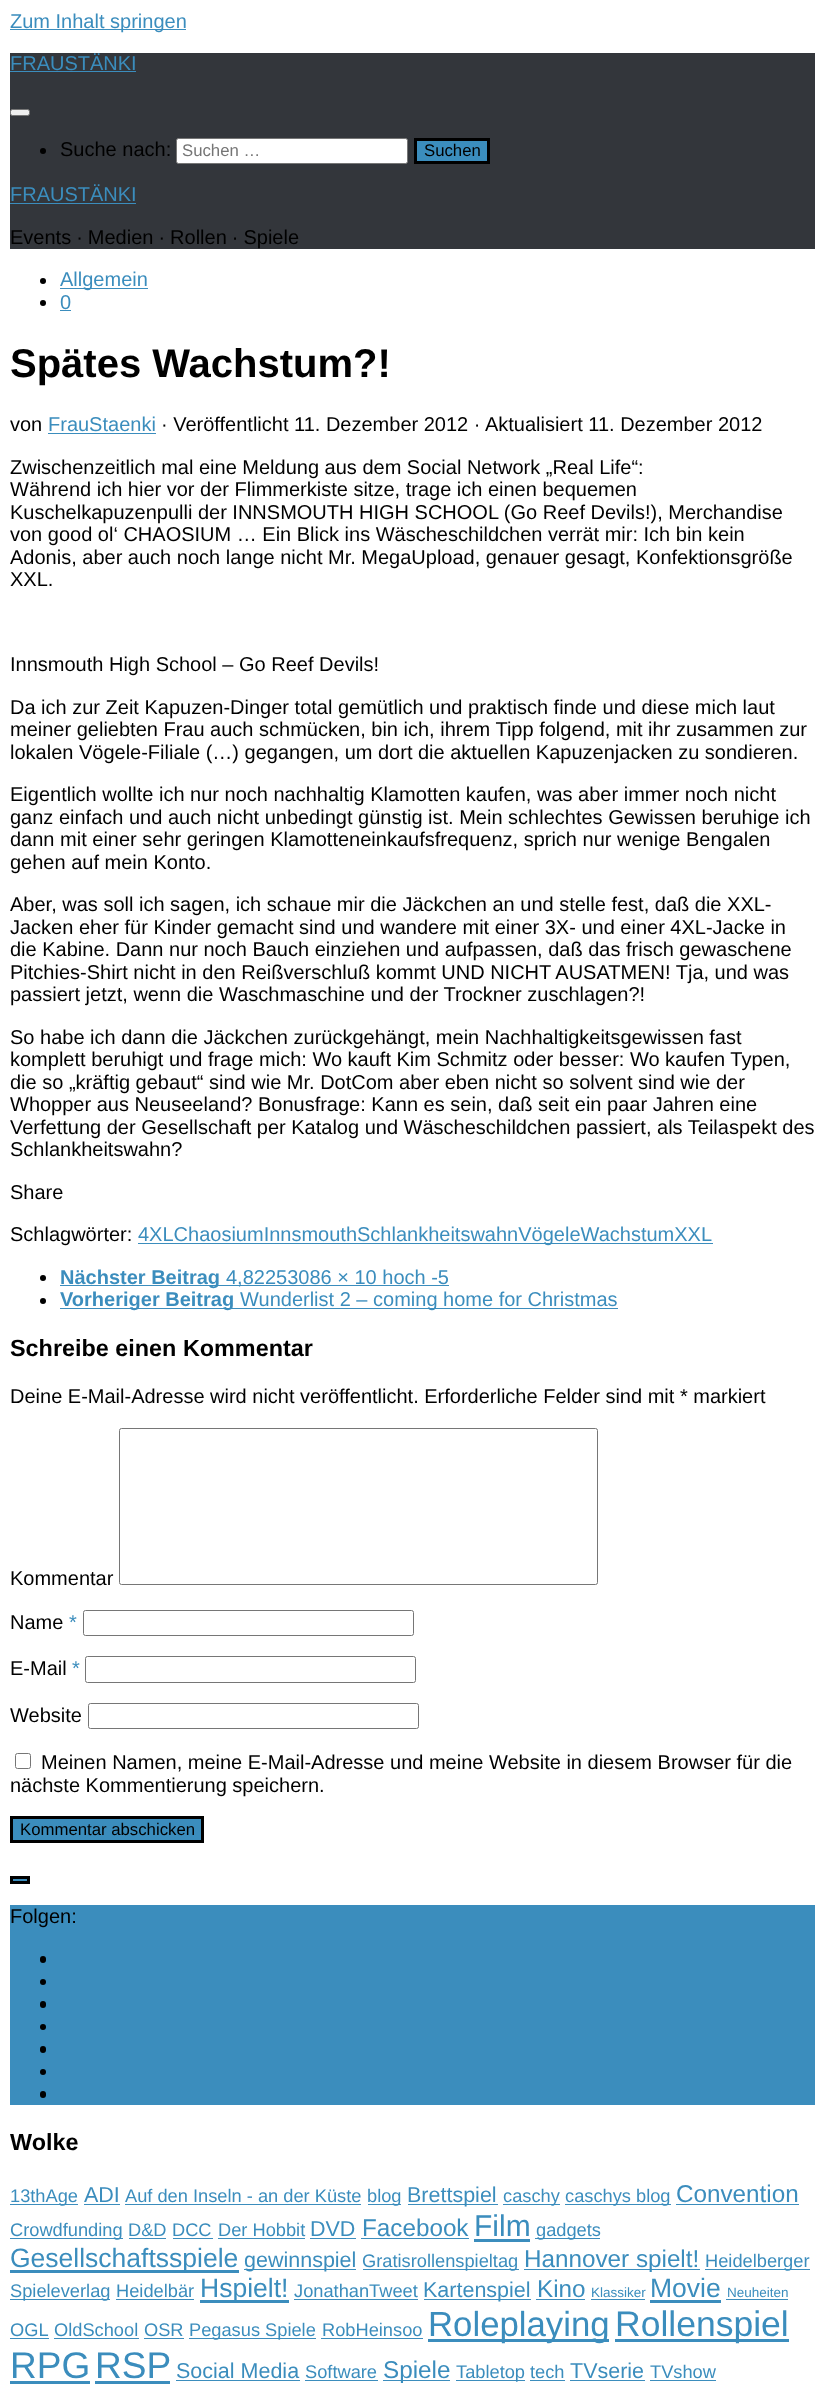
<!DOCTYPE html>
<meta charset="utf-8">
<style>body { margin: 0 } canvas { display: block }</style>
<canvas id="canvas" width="824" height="2391"></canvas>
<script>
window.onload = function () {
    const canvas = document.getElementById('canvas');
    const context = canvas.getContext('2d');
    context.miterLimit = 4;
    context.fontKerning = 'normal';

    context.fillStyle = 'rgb(255, 255, 255)';
    context.fillRect(0, 0, 824, 2391);
    context.fillStyle = 'rgb(59, 141, 189)';
    context.fillRect(10, 29, 176, 1);
    context.fillStyle = 'rgb(51, 54, 59)';
    context.fillRect(10, 53, 805, 196);
    context.fillStyle = 'rgb(59, 141, 189)';
    context.fillRect(10, 71, 126, 1);
    context.fillStyle = 'rgb(239, 239, 239)';
    context.beginPath();
    context.roundRect(10.5, 109.5, 19, 6, 2);
    context.fill();
    context.strokeStyle = 'rgb(118, 118, 118)';
    context.stroke();
    context.fillStyle = 'rgb(0, 0, 0)';
    context.beginPath();
    context.arc(43, 151, 3, 0, 2 * Math.PI);
    context.fill();
    context.fillStyle = 'rgb(255, 255, 255)';
    context.beginPath();
    context.roundRect(176.5, 138.5, 231, 25, 2);
    context.fill();
    context.stroke();
    context.fillStyle = 'rgb(59, 141, 189)';
    context.beginPath();
    context.rect(415.5, 139.5, 73, 23);
    context.fill();
    context.strokeStyle = 'rgb(0, 0, 0)';
    context.lineWidth = 3;
    context.stroke();
    context.fillRect(10, 203, 126, 1);
    context.fillStyle = 'rgb(0, 0, 0)';
    context.beginPath();
    context.arc(43, 281, 3, 0, 2 * Math.PI);
    context.fill();
    context.fillStyle = 'rgb(59, 141, 189)';
    context.fillRect(60, 288, 88, 1);
    context.fillStyle = 'rgb(0, 0, 0)';
    context.beginPath();
    context.arc(43, 303, 3, 0, 2 * Math.PI);
    context.fill();
    context.fillStyle = 'rgb(59, 141, 189)';
    context.fillRect(60, 310, 11, 1);
    context.fillRect(48, 433, 108, 1);
    context.fillRect(138, 1243, 575, 1);
    context.fillStyle = 'rgb(0, 0, 0)';
    context.beginPath();
    context.arc(43, 1278, 3, 0, 2 * Math.PI);
    context.fill();
    context.fillStyle = 'rgb(59, 141, 189)';
    context.fillRect(60, 1285, 389, 1);
    context.fillStyle = 'rgb(0, 0, 0)';
    context.beginPath();
    context.arc(43, 1301, 3, 0, 2 * Math.PI);
    context.fill();
    context.fillStyle = 'rgb(59, 141, 189)';
    context.fillRect(60, 1308, 558, 1);
    context.beginPath();
    context.roundRect(119.5, 1428.5, 478, 156, 2);
    context.strokeStyle = 'rgb(118, 118, 118)';
    context.lineWidth = 1;
    context.stroke();
    context.beginPath();
    context.roundRect(83.5, 1610.5, 330, 25, 2);
    context.stroke();
    context.beginPath();
    context.roundRect(85.5, 1656.5, 330, 26, 2);
    context.stroke();
    context.beginPath();
    context.roundRect(88.5, 1703.5, 330, 25, 2);
    context.stroke();
    context.beginPath();
    context.roundRect(15.5, 1753.5, 15, 15, 2);
    context.stroke();
    context.beginPath();
    context.rect(11.5, 1817.5, 191, 24);
    context.fill();
    context.strokeStyle = 'rgb(0, 0, 0)';
    context.lineWidth = 3;
    context.stroke();
    context.beginPath();
    context.rect(11.5, 1877.5, 17, 5);
    context.fill();
    context.stroke();
    context.fillRect(10, 1905, 805, 200);
    context.fillStyle = 'rgb(0, 0, 0)';
    context.beginPath();
    context.roundRect(40, 1956, 6, 7, 3);
    context.fill();
    context.beginPath();
    context.arc(43, 1982, 3, 0, 2 * Math.PI);
    context.fill();
    context.beginPath();
    context.roundRect(40, 2001, 6, 7, 3);
    context.fill();
    context.beginPath();
    context.arc(43, 2027, 3, 0, 2 * Math.PI);
    context.fill();
    context.beginPath();
    context.roundRect(40, 2046, 6, 7, 3);
    context.fill();
    context.beginPath();
    context.arc(43, 2072, 3, 0, 2 * Math.PI);
    context.fill();
    context.beginPath();
    context.roundRect(40, 2091, 6, 7, 3);
    context.fill();
    context.fillStyle = 'rgb(59, 141, 189)';
    context.fillRect(10, 2204, 68, 1);
    context.fillRect(84, 2204, 36, 1);
    context.fillRect(125, 2204, 236, 1);
    context.fillRect(368, 2204, 33, 1);
    context.fillRect(408, 2204, 90, 1);
    context.fillRect(503, 2204, 57, 1);
    context.fillRect(565, 2204, 106, 1);
    context.fillRect(676, 2204, 123, 1);
    context.fillRect(10, 2238, 113, 1);
    context.fillRect(129, 2238, 37, 1);
    context.fillRect(173, 2238, 40, 1);
    context.fillRect(218, 2238, 87, 1);
    context.fillRect(310, 2238, 46, 1);
    context.fillRect(361, 2238, 108, 1);
    context.fillRect(474, 2239, 56, 3);
    context.fillRect(535, 2238, 65, 1);
    context.fillRect(10, 2270, 229, 3);
    context.fillRect(244, 2269, 112, 1);
    context.fillRect(363, 2269, 156, 1);
    context.fillRect(524, 2269, 176, 1);
    context.fillRect(705, 2269, 105, 1);
    context.fillRect(10, 2299, 100, 1);
    context.fillRect(116, 2299, 78, 1);
    context.fillRect(200, 2300, 89, 3);
    context.fillRect(294, 2299, 124, 1);
    context.fillRect(424, 2299, 107, 1);
    context.fillRect(536, 2299, 49, 1);
    context.fillRect(591, 2299, 54, 1);
    context.fillRect(650, 2300, 71, 3);
    context.fillRect(726, 2299, 62, 1);
    context.fillRect(10, 2338, 39, 1);
    context.fillRect(54, 2338, 85, 1);
    context.fillRect(144, 2338, 40, 1);
    context.fillRect(189, 2338, 127, 1);
    context.fillRect(321, 2338, 102, 1);
    context.fillRect(428, 2339, 181, 3);
    context.fillRect(615, 2339, 174, 3);
    context.fillRect(10, 2381, 80, 3);
    context.fillRect(95, 2381, 75, 3);
    context.fillRect(176, 2380, 124, 1);
    context.fillRect(305, 2380, 73, 1);
    context.fillRect(383, 2380, 67, 1);
    context.fillRect(456, 2380, 69, 1);
    context.fillRect(530, 2380, 35, 1);
    context.fillRect(570, 2380, 75, 1);
    context.fillRect(650, 2380, 66, 1);
    context.font = '20px Liberation Sans';
    context.fillText('Zum Inhalt springen', 10, 28);
    context.fillText('FRAUSTÄNKI', 10, 70);
    context.fillStyle = 'rgb(0, 0, 0)';
    context.fillText('Suche nach:', 60, 156);
    context.font = '16.75px Liberation Sans';
    context.fillStyle = 'rgb(117, 117, 117)';
    context.fillText('Suchen …', 182, 156);
    context.fillStyle = 'rgb(0, 0, 0)';
    context.fillText('Suchen', 424, 156);
    context.font = '20px Liberation Sans';
    context.fillStyle = 'rgb(59, 141, 189)';
    context.fillText('FRAUSTÄNKI', 10, 201);
    context.fillStyle = 'rgb(0, 0, 0)';
    context.fillText('Events ∙ Medien ∙ Rollen ∙ Spiele', 10, 244);
    context.fillStyle = 'rgb(59, 141, 189)';
    context.fillText('Allgemein', 60, 286);
    context.fillText('0', 60, 309);
    context.font = 'bold 40px Liberation Sans';
    context.fillStyle = 'rgb(0, 0, 0)';
    context.fillText('Spätes Wachstum?!', 10, 377);
    context.font = '20px Liberation Sans';
    context.fillText('von', 10, 431);
    context.fillStyle = 'rgb(59, 141, 189)';
    context.fillText('FrauStaenki', 48, 431);
    context.fillStyle = 'rgb(0, 0, 0)';
    context.fillText('· Veröffentlicht 11. Dezember 2012 · Aktualisiert 11. Dezember 2012', 161, 431);
    context.fillText('Zwischenzeitlich mal eine Meldung aus dem Social Network „Real Life“:', 10, 474);
    context.fillText('Während ich hier vor der Flimmerkiste sitze, trage ich einen bequemen', 10, 496);
    context.fillText('Kuschelkapuzenpulli der INNSMOUTH HIGH SCHOOL (Go Reef Devils!), Merchandise', 10, 519);
    context.fillText('von good ol‘ CHAOSIUM … Ein Blick ins Wäscheschildchen verrät mir: Ich bin kein', 10, 541);
    context.fillText('Adonis, aber auch noch lange nicht Mr. MegaUpload, genauer gesagt, Konfektionsgröße', 10, 564);
    context.fillText('XXL.', 10, 586);
    context.fillText('Innsmouth High School – Go Reef Devils!', 10, 671);
    context.fillText('Da ich zur Zeit Kapuzen-Dinger total gemütlich und praktisch finde und diese mich laut', 10, 714);
    context.fillText('meiner geliebten Frau auch schmücken, bin ich, ihrem Tipp folgend, mit ihr zusammen zur', 10, 736);
    context.fillText('lokalen Vögele-Filiale (…) gegangen, um dort die aktuellen Kapuzenjacken zu sondieren.', 10, 759);
    context.fillText('Eigentlich wollte ich nur noch nachhaltig Klamotten kaufen, was aber immer noch nicht', 10, 801);
    context.fillText('ganz einfach und auch nicht unbedingt günstig ist. Mein schlechtes Gewissen beruhige ich', 10, 824);
    context.fillText('dann mit einer sehr geringen Klamotteneinkaufsfrequenz, sprich nur wenige Bengalen', 10, 846);
    context.fillText('gehen auf mein Konto.', 10, 869);
    context.fillText('Aber, was soll ich sagen, ich schaue mir die Jäckchen an und stelle fest, daß die XXL-', 10, 911);
    context.fillText('Jacken eher für Kinder gemacht sind und wandere mit einer 3X- und einer 4XL-Jacke in', 10, 934);
    context.fillText('die Kabine. Dann nur noch Bauch einziehen und aufpassen, daß das frisch gewaschene', 10, 956);
    context.fillText('Pitchies-Shirt nicht in den Reißverschluß kommt UND NICHT AUSATMEN! Tja, und was', 10, 979);
    context.fillText('passiert jetzt, wenn die Waschmaschine und der Trockner zuschlagen?!', 10, 1001);
    context.fillText('So habe ich dann die Jäckchen zurückgehängt, mein Nachhaltigkeitsgewissen fast', 10, 1044);
    context.fillText('komplett beruhigt und frage mich: Wo kauft Kim Schmitz oder besser: Wo kaufen Typen,', 10, 1066);
    context.fillText('die so „kräftig gebaut“ sind wie Mr. DotCom aber eben nicht so solvent sind wie der', 10, 1089);
    context.fillText('Whopper aus Neuseeland? Bonusfrage: Kann es sein, daß seit ein paar Jahren eine', 10, 1111);
    context.fillText('Verfettung der Gesellschaft per Katalog und Wäscheschildchen passiert, als Teilaspekt des', 10, 1134);
    context.fillText('Schlankheitswahn?', 10, 1156);
    context.fillText('Share', 10, 1199);
    context.fillText('Schlagwörter:', 10, 1241);
    context.fillStyle = 'rgb(59, 141, 189)';
    context.fillText('4XLChaosiumInnsmouthSchlankheitswahnVögeleWachstumXXL', 138, 1241);
    context.font = 'bold 20px Liberation Sans';
    context.fillText('Nächster Beitrag', 60, 1284);
    context.font = '20px Liberation Sans';
    context.fillText('4,82253086 × 10 hoch -5', 226, 1284);
    context.font = 'bold 20px Liberation Sans';
    context.fillText('Vorheriger Beitrag', 60, 1306);
    context.font = '20px Liberation Sans';
    context.fillText('Wunderlist 2 – coming home for Christmas', 240, 1306);
    context.font = 'bold 23.4px Liberation Sans';
    context.fillStyle = 'rgb(0, 0, 0)';
    context.fillText('Schreibe einen Kommentar', 10, 1356);
    context.font = '20px Liberation Sans';
    context.fillText('Deine E-Mail-Adresse wird nicht veröffentlicht. Erforderliche Felder sind mit * markiert', 10, 1403);
    context.fillText('Kommentar', 10, 1585);
    context.fillText('Name', 10, 1629);
    context.fillStyle = 'rgb(59, 141, 189)';
    context.fillText('*', 69, 1629);
    context.fillStyle = 'rgb(0, 0, 0)';
    context.fillText('E-Mail', 10, 1675);
    context.fillStyle = 'rgb(59, 141, 189)';
    context.fillText('*', 72, 1675);
    context.fillStyle = 'rgb(0, 0, 0)';
    context.fillText('Website', 10, 1722);
    context.fillText('Meinen Namen, meine E-Mail-Adresse und meine Website in diesem Browser für die', 41, 1769);
    context.fillText('nächste Kommentierung speichern.', 10, 1792);
    context.font = '16.75px Liberation Sans';
    context.fillText('Kommentar abschicken', 20, 1835);
    context.font = '20px Liberation Sans';
    context.fillText('Folgen:', 10, 1923);
    context.font = 'bold 23.4px Liberation Sans';
    context.fillText('Wolke', 10, 2150);
    context.font = '18.25px Liberation Sans';
    context.fillStyle = 'rgb(59, 141, 189)';
    context.fillText('13thAge', 10, 2202);
    context.font = '21.5px Liberation Sans';
    context.fillText('ADI', 84, 2202);
    context.font = '18.25px Liberation Sans';
    context.fillText('Auf den Inseln - an der Küste', 125, 2202);
    context.fillText('blog', 367, 2202);
    context.font = '21.5px Liberation Sans';
    context.fillText('Brettspiel', 407, 2202);
    context.font = '18.25px Liberation Sans';
    context.fillText('caschy', 503, 2202);
    context.fillText('caschys blog', 565, 2202);
    context.font = '24.25px Liberation Sans';
    context.fillText('Convention', 676, 2202);
    context.font = '18.25px Liberation Sans';
    context.fillText('Crowdfunding', 10, 2236);
    context.fillText('D&D', 128, 2236);
    context.fillText('DCC', 172, 2236);
    context.fillText('Der Hobbit', 218, 2236);
    context.font = '21.5px Liberation Sans';
    context.fillText('DVD', 310, 2236);
    context.font = '24.25px Liberation Sans';
    context.fillText('Facebook', 362, 2236);
    context.font = '30px Liberation Sans';
    context.fillText('Film', 474, 2236);
    context.font = '18.25px Liberation Sans';
    context.fillText('gadgets', 536, 2236);
    context.font = '26.5px Liberation Sans';
    context.fillText('Gesellschaftsspiele', 10, 2267);
    context.font = '21.5px Liberation Sans';
    context.fillText('gewinnspiel', 244, 2267);
    context.font = '18.25px Liberation Sans';
    context.fillText('Gratisrollenspieltag', 362, 2267);
    context.font = '24.25px Liberation Sans';
    context.fillText('Hannover spielt!', 524, 2267);
    context.font = '18.25px Liberation Sans';
    context.fillText('Heidelberger', 705, 2267);
    context.fillText('Spieleverlag', 10, 2297);
    context.fillText('Heidelbär', 116, 2297);
    context.font = '26.5px Liberation Sans';
    context.fillText('Hspielt!', 200, 2297);
    context.font = '18.25px Liberation Sans';
    context.fillText('JonathanTweet', 294, 2297);
    context.font = '21.5px Liberation Sans';
    context.fillText('Kartenspiel', 423, 2297);
    context.font = '24.25px Liberation Sans';
    context.fillText('Kino', 537, 2297);
    context.font = '13.5px Liberation Sans';
    context.fillText('Klassiker', 591, 2297);
    context.font = '26.5px Liberation Sans';
    context.fillText('Movie', 650, 2297);
    context.font = '13.5px Liberation Sans';
    context.fillText('Neuheiten', 727, 2297);
    context.font = '18.25px Liberation Sans';
    context.fillText('OGL', 10, 2336);
    context.fillText('OldSchool', 54, 2336);
    context.fillText('OSR', 144, 2336);
    context.fillText('Pegasus Spiele', 189, 2336);
    context.fillText('RobHeinsoo', 322, 2336);
    context.font = '34.75px Liberation Sans';
    context.fillText('Roleplaying', 428, 2336);
    context.font = '35.5px Liberation Sans';
    context.fillText('Rollenspiel', 615, 2336);
    context.font = '37px Liberation Sans';
    context.fillText('RPG', 10, 2378);
    context.fillText('RSP', 95, 2378);
    context.font = '21.5px Liberation Sans';
    context.fillText('Social Media', 176, 2378);
    context.font = '18.25px Liberation Sans';
    context.fillText('Software', 305, 2378);
    context.font = '24.25px Liberation Sans';
    context.fillText('Spiele', 383, 2378);
    context.font = '18.25px Liberation Sans';
    context.fillText('Tabletop', 456, 2378);
    context.fillText('tech', 530, 2378);
    context.font = '21.5px Liberation Sans';
    context.fillText('TVserie', 570, 2378);
    context.font = '18.25px Liberation Sans';
    context.fillText('TVshow', 650, 2378);
};
</script>
